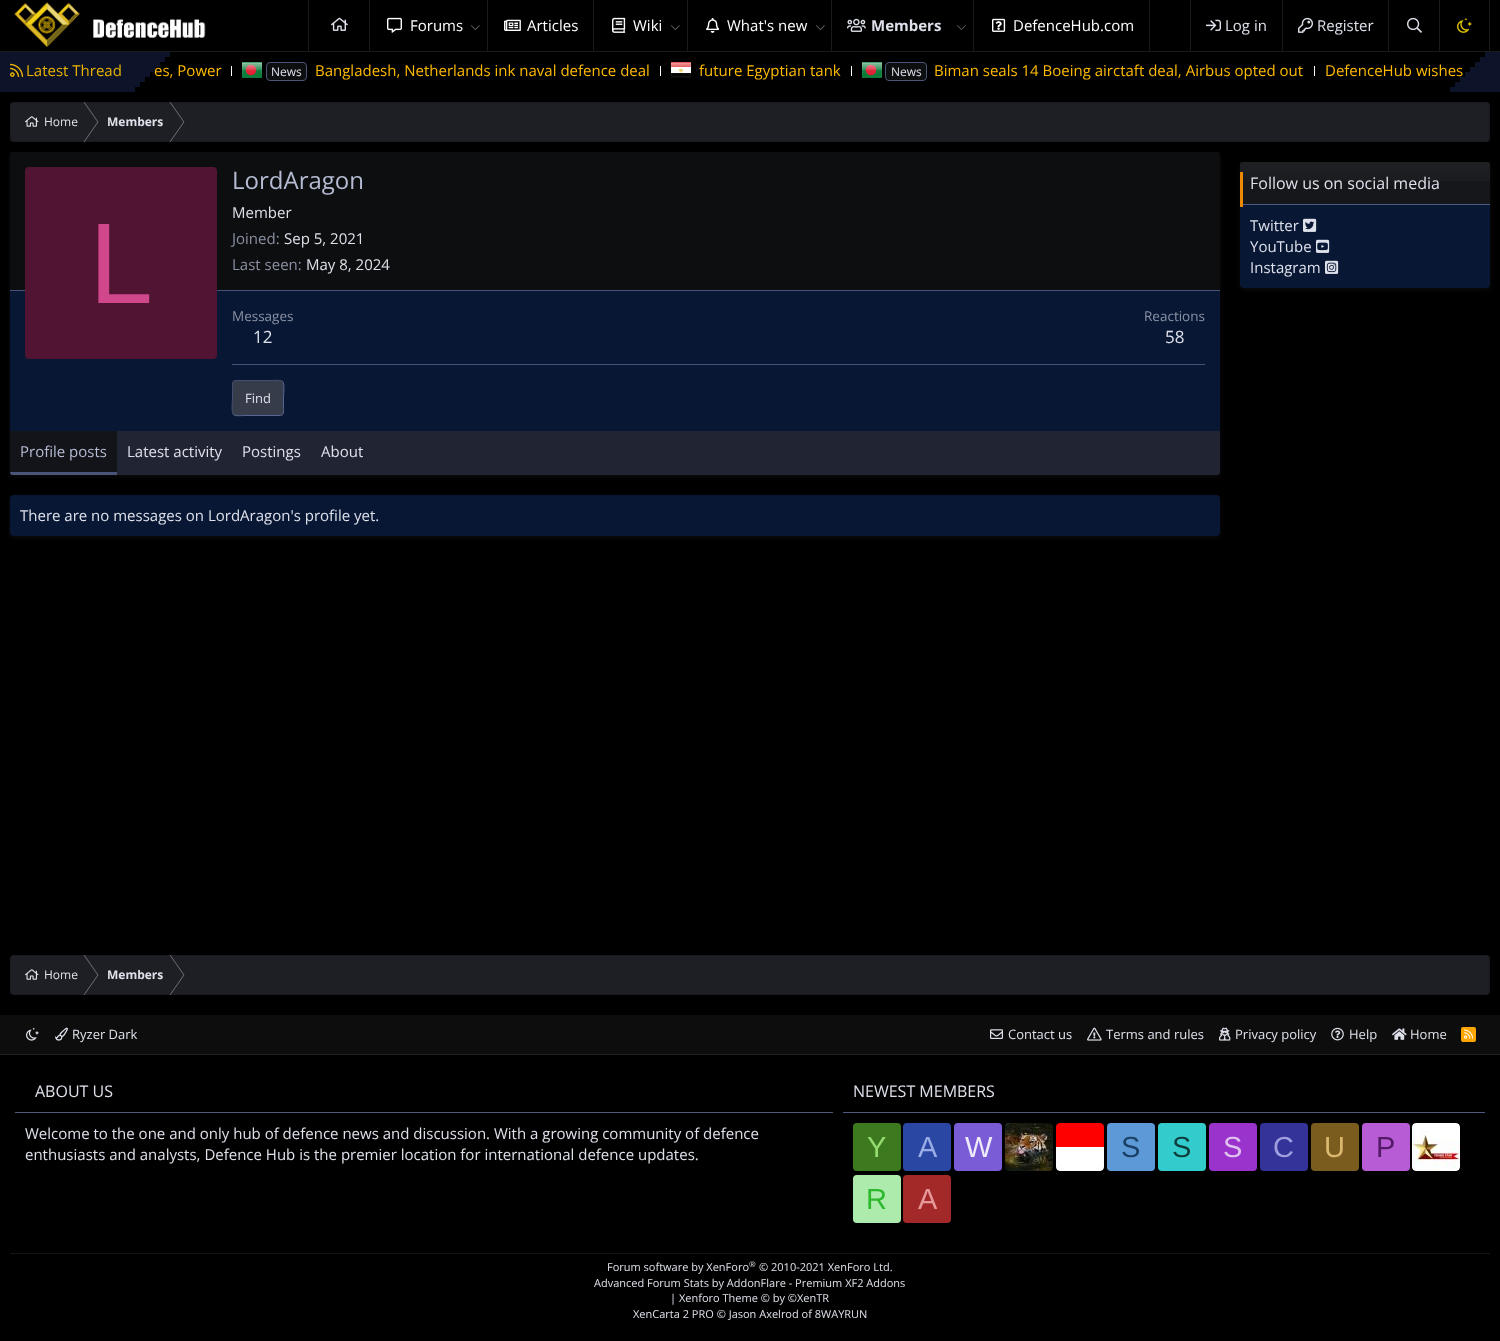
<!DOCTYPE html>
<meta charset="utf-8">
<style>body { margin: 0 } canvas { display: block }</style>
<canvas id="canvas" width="1500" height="1341"></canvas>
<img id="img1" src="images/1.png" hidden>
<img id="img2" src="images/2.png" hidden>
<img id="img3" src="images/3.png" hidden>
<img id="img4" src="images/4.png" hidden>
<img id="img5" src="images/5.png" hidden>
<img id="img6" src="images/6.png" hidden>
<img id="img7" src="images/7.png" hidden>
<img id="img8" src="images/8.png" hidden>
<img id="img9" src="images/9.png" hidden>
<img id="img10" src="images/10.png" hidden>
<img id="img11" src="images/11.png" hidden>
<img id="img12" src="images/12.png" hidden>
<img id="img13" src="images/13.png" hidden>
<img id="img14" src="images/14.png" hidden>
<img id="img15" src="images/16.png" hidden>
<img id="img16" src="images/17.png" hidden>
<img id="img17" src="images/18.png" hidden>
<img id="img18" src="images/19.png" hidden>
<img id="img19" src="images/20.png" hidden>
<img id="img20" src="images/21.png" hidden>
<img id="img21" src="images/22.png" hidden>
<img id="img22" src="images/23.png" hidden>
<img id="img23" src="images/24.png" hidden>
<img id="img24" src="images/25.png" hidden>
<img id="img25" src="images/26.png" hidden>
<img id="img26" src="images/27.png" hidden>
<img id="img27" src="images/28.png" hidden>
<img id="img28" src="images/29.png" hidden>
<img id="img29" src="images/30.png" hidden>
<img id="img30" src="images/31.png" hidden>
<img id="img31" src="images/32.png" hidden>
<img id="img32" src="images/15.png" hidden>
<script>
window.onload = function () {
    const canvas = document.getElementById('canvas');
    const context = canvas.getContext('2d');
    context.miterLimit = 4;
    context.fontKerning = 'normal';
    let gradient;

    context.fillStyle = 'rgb(0, 0, 0)';
    context.fillRect(0, 0, 1500, 1341);
    context.fillStyle = 'rgb(26, 26, 26)';
    context.fillRect(0, 51, 1500, 1);
    context.drawImage(document.getElementById('img1'), 14, 2, 192, 45);
    context.fillRect(308, 0, 1, 51);
    context.drawImage(document.getElementById('img2'), 331, 17, 17, 14);
    context.fillRect(369, 0, 1, 51);
    context.drawImage(document.getElementById('img3'), 387, 17, 15, 16);
    context.drawImage(document.getElementById('img4'), 471, 25, 9, 5);
    context.fillRect(487, 0, 1, 51);
    context.drawImage(document.getElementById('img5'), 504, 19, 17, 12);
    context.fillRect(593, 0, 1, 51);
    context.drawImage(document.getElementById('img6'), 612, 17, 14, 16);
    context.drawImage(document.getElementById('img4'), 671, 25, 9, 5);
    context.fillRect(687, 0, 1, 51);
    context.drawImage(document.getElementById('img7'), 706, 17, 14, 16);
    context.drawImage(document.getElementById('img4'), 816, 25, 9, 5);
    context.fillRect(831, 0, 1, 51);
    context.drawImage(document.getElementById('img8'), 847, 18, 19, 14);
    context.drawImage(document.getElementById('img9'), 957, 25, 9, 5);
    context.fillRect(1149, 0, 1, 51);
    context.fillRect(973, 0, 1, 51);
    context.drawImage(document.getElementById('img10'), 992, 18, 14, 14);
    context.fillRect(1190, 0, 1, 51);
    context.drawImage(document.getElementById('img11'), 1206, 19, 15, 12);
    context.fillRect(1282, 0, 1, 51);
    context.drawImage(document.getElementById('img12'), 1298, 17, 15, 16);
    context.fillRect(1489, 0, 1, 51);
    context.fillRect(1388, 0, 1, 51);
    context.drawImage(document.getElementById('img13'), 1407, 17, 15, 16);
    context.fillRect(1439, 0, 1, 51);
    context.drawImage(document.getElementById('img14'), 1457, 18, 15, 15);
    context.fillStyle = 'rgb(13, 19, 40)';
    context.fillRect(0, 52, 170, 5);
    context.fillRect(0, 57, 165, 5);
    context.fillRect(0, 72, 150, 5);
    context.fillRect(0, 77, 145, 5);
    context.fillRect(0, 82, 140, 5);
    context.fillRect(0, 87, 135, 5);
    context.fillRect(1485, 52, 15, 5);
    context.fillRect(1480, 57, 20, 5);
    context.fillRect(1475, 62, 25, 5);
    context.fillRect(1470, 67, 30, 5);
    context.fillRect(1465, 72, 35, 5);
    context.fillRect(1460, 77, 40, 5);
    context.fillRect(1455, 82, 45, 5);
    context.fillRect(1450, 87, 50, 5);
    context.fillStyle = 'rgb(255, 255, 255)';
    context.fillRect(231, 66, 1, 10);
    context.drawImage(document.getElementById('img15'), 242, 62, 20, 16);
    context.fillStyle = 'rgb(13, 14, 15)';
    context.beginPath();
    context.roundRect(266.5, 62.5, 40, 18, 3.5);
    context.fill();
    context.strokeStyle = 'rgb(75, 85, 121)';
    context.stroke();
    context.fillStyle = 'rgb(255, 255, 255)';
    context.fillRect(660, 66, 1, 10);
    context.drawImage(document.getElementById('img16'), 671, 62, 20, 16);
    context.fillRect(851, 66, 1, 10);
    context.drawImage(document.getElementById('img15'), 862, 62, 20, 16);
    context.fillStyle = 'rgb(13, 14, 15)';
    context.beginPath();
    context.roundRect(885.5, 62.5, 41, 18, 3.5);
    context.fill();
    context.stroke();
    context.fillStyle = 'rgb(255, 255, 255)';
    context.fillRect(1314, 66, 1, 10);
    context.fillStyle = 'rgb(30, 31, 37)';
    context.beginPath();
    context.roundRect(10, 102, 1480, 40, 4);
    context.fill();
    context.drawImage(document.getElementById('img17'), 25, 116, 14, 11);
    context.fillStyle = 'rgb(116, 116, 120)';
    context.beginPath();
    context.moveTo(83.5, 102);
    context.lineTo(84.5, 102);
    context.lineTo(98.5, 122);
    context.lineTo(97.5, 122);
    context.closePath();
    context.fill();
    context.fillStyle = 'rgba(0, 0, 0, 0.1)';
    context.beginPath();
    context.moveTo(84.5, 102);
    context.lineTo(85.5, 102);
    context.lineTo(99.5, 122);
    context.lineTo(98.5, 122);
    context.closePath();
    context.fill();
    context.fillStyle = 'rgb(116, 116, 120)';
    context.beginPath();
    context.moveTo(97.5, 122);
    context.lineTo(98.5, 122);
    context.lineTo(84.5, 142);
    context.lineTo(83.5, 142);
    context.closePath();
    context.fill();
    context.fillStyle = 'rgba(0, 0, 0, 0.1)';
    context.beginPath();
    context.moveTo(98.5, 122);
    context.lineTo(99.5, 122);
    context.lineTo(85.5, 142);
    context.lineTo(84.5, 142);
    context.closePath();
    context.fill();
    context.fillStyle = 'rgb(116, 116, 120)';
    context.beginPath();
    context.moveTo(169.5, 102);
    context.lineTo(170.5, 102);
    context.lineTo(184.5, 122);
    context.lineTo(183.5, 122);
    context.closePath();
    context.fill();
    context.fillStyle = 'rgba(0, 0, 0, 0.1)';
    context.beginPath();
    context.moveTo(170.5, 102);
    context.lineTo(171.5, 102);
    context.lineTo(185.5, 122);
    context.lineTo(184.5, 122);
    context.closePath();
    context.fill();
    context.fillStyle = 'rgb(116, 116, 120)';
    context.beginPath();
    context.moveTo(183.5, 122);
    context.lineTo(184.5, 122);
    context.lineTo(170.5, 142);
    context.lineTo(169.5, 142);
    context.closePath();
    context.fill();
    context.fillStyle = 'rgba(0, 0, 0, 0.1)';
    context.beginPath();
    context.moveTo(184.5, 122);
    context.lineTo(185.5, 122);
    context.lineTo(171.5, 142);
    context.lineTo(170.5, 142);
    context.closePath();
    context.fill();
    context.beginPath();
    context.roundRect(10.5, 102.5, 1479, 39, 3.5);
    context.strokeStyle = 'rgba(0, 0, 0, 0.1)';
    context.stroke();
    context.fillStyle = 'rgba(108, 111, 115, 0.1)';
    context.filter = 'blur(2px)';
    context.beginPath();
    context.roundRect(10, 154, 1210, 323, 4);
    context.fill();
    context.filter = 'none';
    context.fillStyle = 'rgb(8, 24, 52)';
    context.beginPath();
    context.roundRect(10, 152, 1210, 323, 4);
    context.fill();
    context.fillStyle = 'rgb(13, 14, 15)';
    context.beginPath();
    context.roundRect(10, 152, 1210, 139, [3, 3, 0, 0]);
    context.fill();
    context.fillStyle = 'rgb(72, 82, 120)';
    context.fillRect(10, 290, 1210, 1);
    context.fillStyle = 'rgb(82, 20, 51)';
    context.beginPath();
    context.roundRect(25, 167, 192, 192, 4);
    context.fill();
    context.fillStyle = 'rgb(72, 82, 120)';
    context.fillRect(232, 364, 973, 1);
    context.fillStyle = 'rgb(54, 60, 73)';
    context.beginPath();
    context.roundRect(232, 380, 52, 36, 4);
    context.fill();
    context.beginPath();
    context.moveTo(282.5, 381.5);
    context.bezierCurveTo(285, 384, 283.5, 395, 283.5, 398);
    context.lineTo(283.5, 407.5);
    context.bezierCurveTo(283.5, 410, 284.5, 414.5, 280.5, 415.5);
    context.lineTo(243.5, 415.5);
    context.bezierCurveTo(242, 415.5, 235.5, 416.5, 233.5, 414.5);
    context.strokeStyle = 'rgb(88, 100, 146)';
    context.stroke();
    context.beginPath();
    context.moveTo(233.5, 414.5);
    context.bezierCurveTo(231, 412, 232.5, 401, 232.5, 398);
    context.lineTo(232.5, 388.5);
    context.bezierCurveTo(232.5, 386, 231.5, 381.5, 235.5, 380.5);
    context.lineTo(272.5, 380.5);
    context.bezierCurveTo(274, 380.5, 280.5, 379.5, 282.5, 381.5);
    context.strokeStyle = 'rgb(68, 78, 114)';
    context.stroke();
    context.fillStyle = 'rgb(32, 36, 51)';
    context.beginPath();
    context.roundRect(10, 431, 1210, 44, [0, 0, 3, 3]);
    context.fill();
    context.fillStyle = 'rgb(19, 20, 25)';
    context.beginPath();
    context.roundRect(10, 431, 107, 44, [0, 0, 0, 3]);
    context.fill();
    context.fillStyle = 'rgb(75, 85, 121)';
    context.beginPath();
    context.roundRect(10, 472, 107, 3, [0, 0, 0, 3]);
    context.fill();
    context.fillStyle = 'rgba(108, 111, 115, 0.1)';
    context.filter = 'blur(2px)';
    context.beginPath();
    context.roundRect(10, 497, 1210, 41, 4);
    context.fill();
    context.filter = 'none';
    context.fillStyle = 'rgb(8, 24, 52)';
    context.beginPath();
    context.roundRect(10, 495, 1210, 41, 4);
    context.fill();
    context.fillStyle = 'rgba(108, 111, 115, 0.1)';
    context.filter = 'blur(2px)';
    context.beginPath();
    context.roundRect(1240, 164, 250, 126, 4);
    context.fill();
    context.filter = 'none';
    context.fillStyle = 'rgb(8, 24, 52)';
    context.beginPath();
    context.roundRect(1240, 162, 250, 126, 4);
    context.fill();
    context.fillStyle = 'rgb(21, 23, 27)';
    context.beginPath();
    context.roundRect(1240, 162, 250, 43, [3, 3, 0, 0]);
    context.fill();
    gradient = context.createLinearGradient(1365, 162, 1365, 204);
    gradient.addColorStop(0, 'rgba(255, 255, 255, 0.04)');
    gradient.addColorStop(1, 'rgba(255, 255, 255, 0)');
    context.fillStyle = gradient;
    context.fillRect(1240, 162, 250, 19);
    context.fillStyle = 'rgb(78, 89, 130)';
    context.fillRect(1240, 204, 250, 1);
    context.fillStyle = 'rgb(237, 136, 4)';
    context.fillRect(1240, 172, 3, 35);
    context.drawImage(document.getElementById('img18'), 1303, 218, 14, 14);
    context.drawImage(document.getElementById('img19'), 1316, 239, 14, 14);
    context.drawImage(document.getElementById('img20'), 1325, 260, 14, 14);
    context.fillStyle = 'rgb(30, 31, 37)';
    context.beginPath();
    context.roundRect(10, 955, 1480, 40, 4);
    context.fill();
    context.drawImage(document.getElementById('img17'), 25, 969, 14, 11);
    context.fillStyle = 'rgb(116, 116, 120)';
    context.beginPath();
    context.moveTo(83.5, 955);
    context.lineTo(84.5, 955);
    context.lineTo(98.5, 975);
    context.lineTo(97.5, 975);
    context.closePath();
    context.fill();
    context.fillStyle = 'rgba(0, 0, 0, 0.1)';
    context.beginPath();
    context.moveTo(84.5, 955);
    context.lineTo(85.5, 955);
    context.lineTo(99.5, 975);
    context.lineTo(98.5, 975);
    context.closePath();
    context.fill();
    context.fillStyle = 'rgb(116, 116, 120)';
    context.beginPath();
    context.moveTo(97.5, 975);
    context.lineTo(98.5, 975);
    context.lineTo(84.5, 995);
    context.lineTo(83.5, 995);
    context.closePath();
    context.fill();
    context.fillStyle = 'rgba(0, 0, 0, 0.1)';
    context.beginPath();
    context.moveTo(98.5, 975);
    context.lineTo(99.5, 975);
    context.lineTo(85.5, 995);
    context.lineTo(84.5, 995);
    context.closePath();
    context.fill();
    context.fillStyle = 'rgb(116, 116, 120)';
    context.beginPath();
    context.moveTo(169.5, 955);
    context.lineTo(170.5, 955);
    context.lineTo(184.5, 975);
    context.lineTo(183.5, 975);
    context.closePath();
    context.fill();
    context.fillStyle = 'rgba(0, 0, 0, 0.1)';
    context.beginPath();
    context.moveTo(170.5, 955);
    context.lineTo(171.5, 955);
    context.lineTo(185.5, 975);
    context.lineTo(184.5, 975);
    context.closePath();
    context.fill();
    context.fillStyle = 'rgb(116, 116, 120)';
    context.beginPath();
    context.moveTo(183.5, 975);
    context.lineTo(184.5, 975);
    context.lineTo(170.5, 995);
    context.lineTo(169.5, 995);
    context.closePath();
    context.fill();
    context.fillStyle = 'rgba(0, 0, 0, 0.1)';
    context.beginPath();
    context.moveTo(184.5, 975);
    context.lineTo(185.5, 975);
    context.lineTo(171.5, 995);
    context.lineTo(170.5, 995);
    context.closePath();
    context.fill();
    context.beginPath();
    context.roundRect(10.5, 955.5, 1479, 39, 3.5);
    context.strokeStyle = 'rgba(0, 0, 0, 0.1)';
    context.stroke();
    context.fillStyle = 'rgb(13, 13, 13)';
    context.fillRect(0, 1015, 1500, 39);
    context.fillStyle = 'rgb(32, 32, 32)';
    context.fillRect(0, 1054, 1500, 1);
    context.drawImage(document.getElementById('img21'), 26, 1027, 13, 14);
    context.drawImage(document.getElementById('img22'), 55, 1027, 13, 14);
    context.drawImage(document.getElementById('img23'), 990, 1029, 13, 10);
    context.drawImage(document.getElementById('img24'), 1087, 1027, 15, 14);
    context.drawImage(document.getElementById('img25'), 1219, 1027, 12, 14);
    context.drawImage(document.getElementById('img26'), 1331, 1027, 13, 14);
    context.drawImage(document.getElementById('img27'), 1392, 1028, 15, 12);
    context.fillStyle = 'rgb(255, 165, 0)';
    context.beginPath();
    context.roundRect(1461, 1027, 15, 15, 2);
    context.fill();
    context.drawImage(document.getElementById('img28'), 1464, 1029, 10, 10);
    context.fillStyle = 'rgb(78, 89, 130)';
    context.fillRect(15, 1112, 818, 1);
    context.fillRect(843, 1112, 642, 1);
    context.fillStyle = 'rgb(61, 122, 31)';
    context.beginPath();
    context.roundRect(853, 1123, 48, 48, 4);
    context.fill();
    context.fillStyle = 'rgb(41, 71, 163)';
    context.beginPath();
    context.roundRect(903, 1123, 48, 48, 4);
    context.fill();
    context.fillStyle = 'rgb(122, 92, 214)';
    context.beginPath();
    context.roundRect(954, 1123, 48, 48, 4);
    context.fill();
    context.drawImage(document.getElementById('img29'), 1005, 1123, 48, 48);
    context.drawImage(document.getElementById('img30'), 1056, 1123, 48, 48);
    context.fillStyle = 'rgb(92, 153, 214)';
    context.beginPath();
    context.roundRect(1107, 1123, 48, 48, 4);
    context.fill();
    context.fillStyle = 'rgb(51, 204, 204)';
    context.beginPath();
    context.roundRect(1158, 1123, 48, 48, 4);
    context.fill();
    context.fillStyle = 'rgb(153, 51, 204)';
    context.beginPath();
    context.roundRect(1209, 1123, 48, 48, 4);
    context.fill();
    context.fillStyle = 'rgb(51, 51, 153)';
    context.beginPath();
    context.roundRect(1260, 1123, 48, 48, 4);
    context.fill();
    context.fillStyle = 'rgb(122, 92, 31)';
    context.beginPath();
    context.roundRect(1311, 1123, 48, 48, 4);
    context.fill();
    context.fillStyle = 'rgb(184, 92, 214)';
    context.beginPath();
    context.roundRect(1362, 1123, 48, 48, 4);
    context.fill();
    context.drawImage(document.getElementById('img31'), 1412, 1123, 48, 48);
    context.fillStyle = 'rgb(173, 235, 173)';
    context.beginPath();
    context.roundRect(853, 1175, 48, 48, 4);
    context.fill();
    context.fillStyle = 'rgb(163, 41, 41)';
    context.beginPath();
    context.roundRect(903, 1175, 48, 48, 4);
    context.fill();
    context.fillStyle = 'rgb(20, 20, 20)';
    context.fillRect(10, 1253, 1480, 1);
    context.font = '15px Open Sans';
    context.fillStyle = 'rgb(255, 255, 255)';
    context.fillText('Forums', 410, 31);
    context.fillText('Articles', 527, 31);
    context.fillText('Wiki', 633, 31);
    context.fillText('What\'s new', 727, 31);
    context.font = 'bold 15px Open Sans';
    context.fillStyle = 'rgb(222, 224, 234)';
    context.fillText('Members', 871, 31);
    context.font = '15px Open Sans';
    context.fillStyle = 'rgb(255, 255, 255)';
    context.fillText('DefenceHub.com', 1013, 31);
    context.fillStyle = 'rgb(222, 224, 234)';
    context.fillText('Log in', 1225, 31);
    context.fillText('Register', 1317, 31);
    context.fillStyle = 'rgb(255, 187, 0)';
    context.fillText('es, Power', 154, 76);
    context.fillStyle = 'rgb(13, 19, 40)';
    context.fillRect(0, 67, 155, 5);
    context.fillRect(0, 62, 160, 5);
    context.fillStyle = 'rgb(233, 179, 0)';
    context.fillText('Latest Thread', 26, 76);
    context.drawImage(document.getElementById('img32'), 10, 63, 14, 14);
    context.font = '12px Open Sans';
    context.fillStyle = 'rgb(222, 224, 234)';
    context.fillText('News', 271, 76);
    context.font = '15px Open Sans';
    context.fillStyle = 'rgb(255, 187, 0)';
    context.fillText('Bangladesh, Netherlands ink naval defence deal', 315, 76);
    context.fillText('future Egyptian tank', 699, 76);
    context.font = '12px Open Sans';
    context.fillStyle = 'rgb(222, 224, 234)';
    context.fillText('News', 891, 76);
    context.font = '15px Open Sans';
    context.fillStyle = 'rgb(255, 187, 0)';
    context.fillText('Biman seals 14 Boeing airctaft deal, Airbus opted out', 934, 76);
    context.fillText('DefenceHub wishes', 1325, 76);
    context.font = '12px Open Sans';
    context.fillStyle = 'rgb(222, 224, 234)';
    context.fillText('Home', 44, 126);
    context.font = 'bold 12px Open Sans';
    context.fillText('Members', 107, 126);
    context.font = '115px Liberation Sans';
    context.fillStyle = 'rgb(209, 71, 140)';
    context.fillText('L', 89, 303);
    context.font = '24px Open Sans';
    context.fillStyle = 'rgb(181, 187, 210)';
    context.fillText('LordAragon', 232, 189);
    context.font = '15px Open Sans';
    context.fillStyle = 'rgb(222, 224, 234)';
    context.fillText('Member', 232, 218);
    context.fillStyle = 'rgb(139, 145, 164)';
    context.fillText('Joined:', 232, 244);
    context.fillStyle = 'rgb(222, 224, 234)';
    context.fillText('Sep 5, 2021', 284, 244);
    context.fillStyle = 'rgb(139, 145, 164)';
    context.fillText('Last seen:', 232, 270);
    context.fillStyle = 'rgb(222, 224, 234)';
    context.fillText('May 8, 2024', 306, 270);
    context.font = '13.5px Open Sans';
    context.fillStyle = 'rgb(139, 145, 164)';
    context.fillText('Messages', 232, 321);
    context.font = '17px Open Sans';
    context.fillStyle = 'rgb(222, 224, 234)';
    context.fillText('12', 253, 343);
    context.font = '13.5px Open Sans';
    context.fillStyle = 'rgb(139, 145, 164)';
    context.fillText('Reactions', 1144, 321);
    context.font = '17px Open Sans';
    context.fillStyle = 'rgb(222, 224, 234)';
    context.fillText('58', 1165, 343);
    context.font = '13px Open Sans';
    context.fillText('Find', 245, 403);
    context.font = '15px Open Sans';
    context.fillStyle = 'rgb(181, 187, 210)';
    context.fillText('Profile posts', 20, 457);
    context.fillStyle = 'rgb(222, 224, 234)';
    context.fillText('Latest activity', 127, 457);
    context.fillText('Postings', 242, 457);
    context.fillText('About', 321, 457);
    context.fillText('There are no messages on LordAragon\'s profile yet.', 20, 521);
    context.font = '16px Open Sans';
    context.fillText('Follow us on social media', 1250, 189);
    context.font = '15px Open Sans';
    context.fillText('Twitter', 1250, 231);
    context.fillText('YouTube', 1250, 252);
    context.fillText('Instagram', 1250, 273);
    context.font = '12px Open Sans';
    context.fillText('Home', 44, 979);
    context.font = 'bold 12px Open Sans';
    context.fillText('Members', 107, 979);
    context.font = '13px Open Sans';
    context.fillText('Ryzer Dark', 72, 1039);
    context.fillText('Contact us', 1008, 1039);
    context.fillText('Terms and rules', 1106, 1039);
    context.fillText('Privacy policy', 1235, 1039);
    context.fillText('Help', 1349, 1039);
    context.fillText('Home', 1410, 1039);
    context.font = '16px Open Sans';
    context.fillText('ABOUT US', 35, 1097);
    context.font = '15px Open Sans';
    context.fillText('Welcome to the one and only hub of defence news and discussion. With a growing community of defence', 25, 1139);
    context.fillText('enthusiasts and analysts, Defence Hub is the premier location for international defence updates.', 25, 1160);
    context.font = '16px Open Sans';
    context.fillText('NEWEST MEMBERS', 853, 1097);
    context.font = '29px Liberation Sans';
    context.fillStyle = 'rgb(148, 219, 112)';
    context.fillText('Y', 867, 1157);
    context.fillStyle = 'rgb(153, 172, 230)';
    context.fillText('A', 918, 1157);
    context.fillStyle = 'rgb(238, 235, 250)';
    context.fillText('W', 965, 1157);
    context.fillStyle = 'rgb(26, 64, 102)';
    context.fillText('S', 1121, 1157);
    context.fillStyle = 'rgb(15, 61, 61)';
    context.fillText('S', 1172, 1157);
    context.fillStyle = 'rgb(224, 194, 240)';
    context.fillText('S', 1223, 1157);
    context.fillStyle = 'rgb(159, 159, 223)';
    context.fillText('C', 1273, 1157);
    context.fillStyle = 'rgb(219, 184, 112)';
    context.fillText('U', 1324, 1157);
    context.fillStyle = 'rgb(83, 26, 102)';
    context.fillText('P', 1376, 1157);
    context.fillStyle = 'rgb(46, 184, 46)';
    context.fillText('R', 866, 1209);
    context.fillStyle = 'rgb(230, 153, 153)';
    context.fillText('A', 918, 1209);
    context.font = '11px Open Sans';
    context.fillStyle = 'rgb(222, 224, 234)';
    context.fillText('Forum software by XenForo', 607, 1271);
    context.font = '8px Open Sans';
    context.fillText('®', 749, 1267);
    context.font = '11px Open Sans';
    context.fillText('© 2010-2021 XenForo Ltd.', 759, 1271);
    context.fillText('Advanced Forum Stats by AddonFlare - Premium XF2 Addons', 594, 1287);
    context.fillText('| Xenforo Theme © by ©XenTR', 670, 1302);
    context.fillText('XenCarta 2 PRO © Jason Axelrod of 8WAYRUN', 633, 1318);
};
</script>
